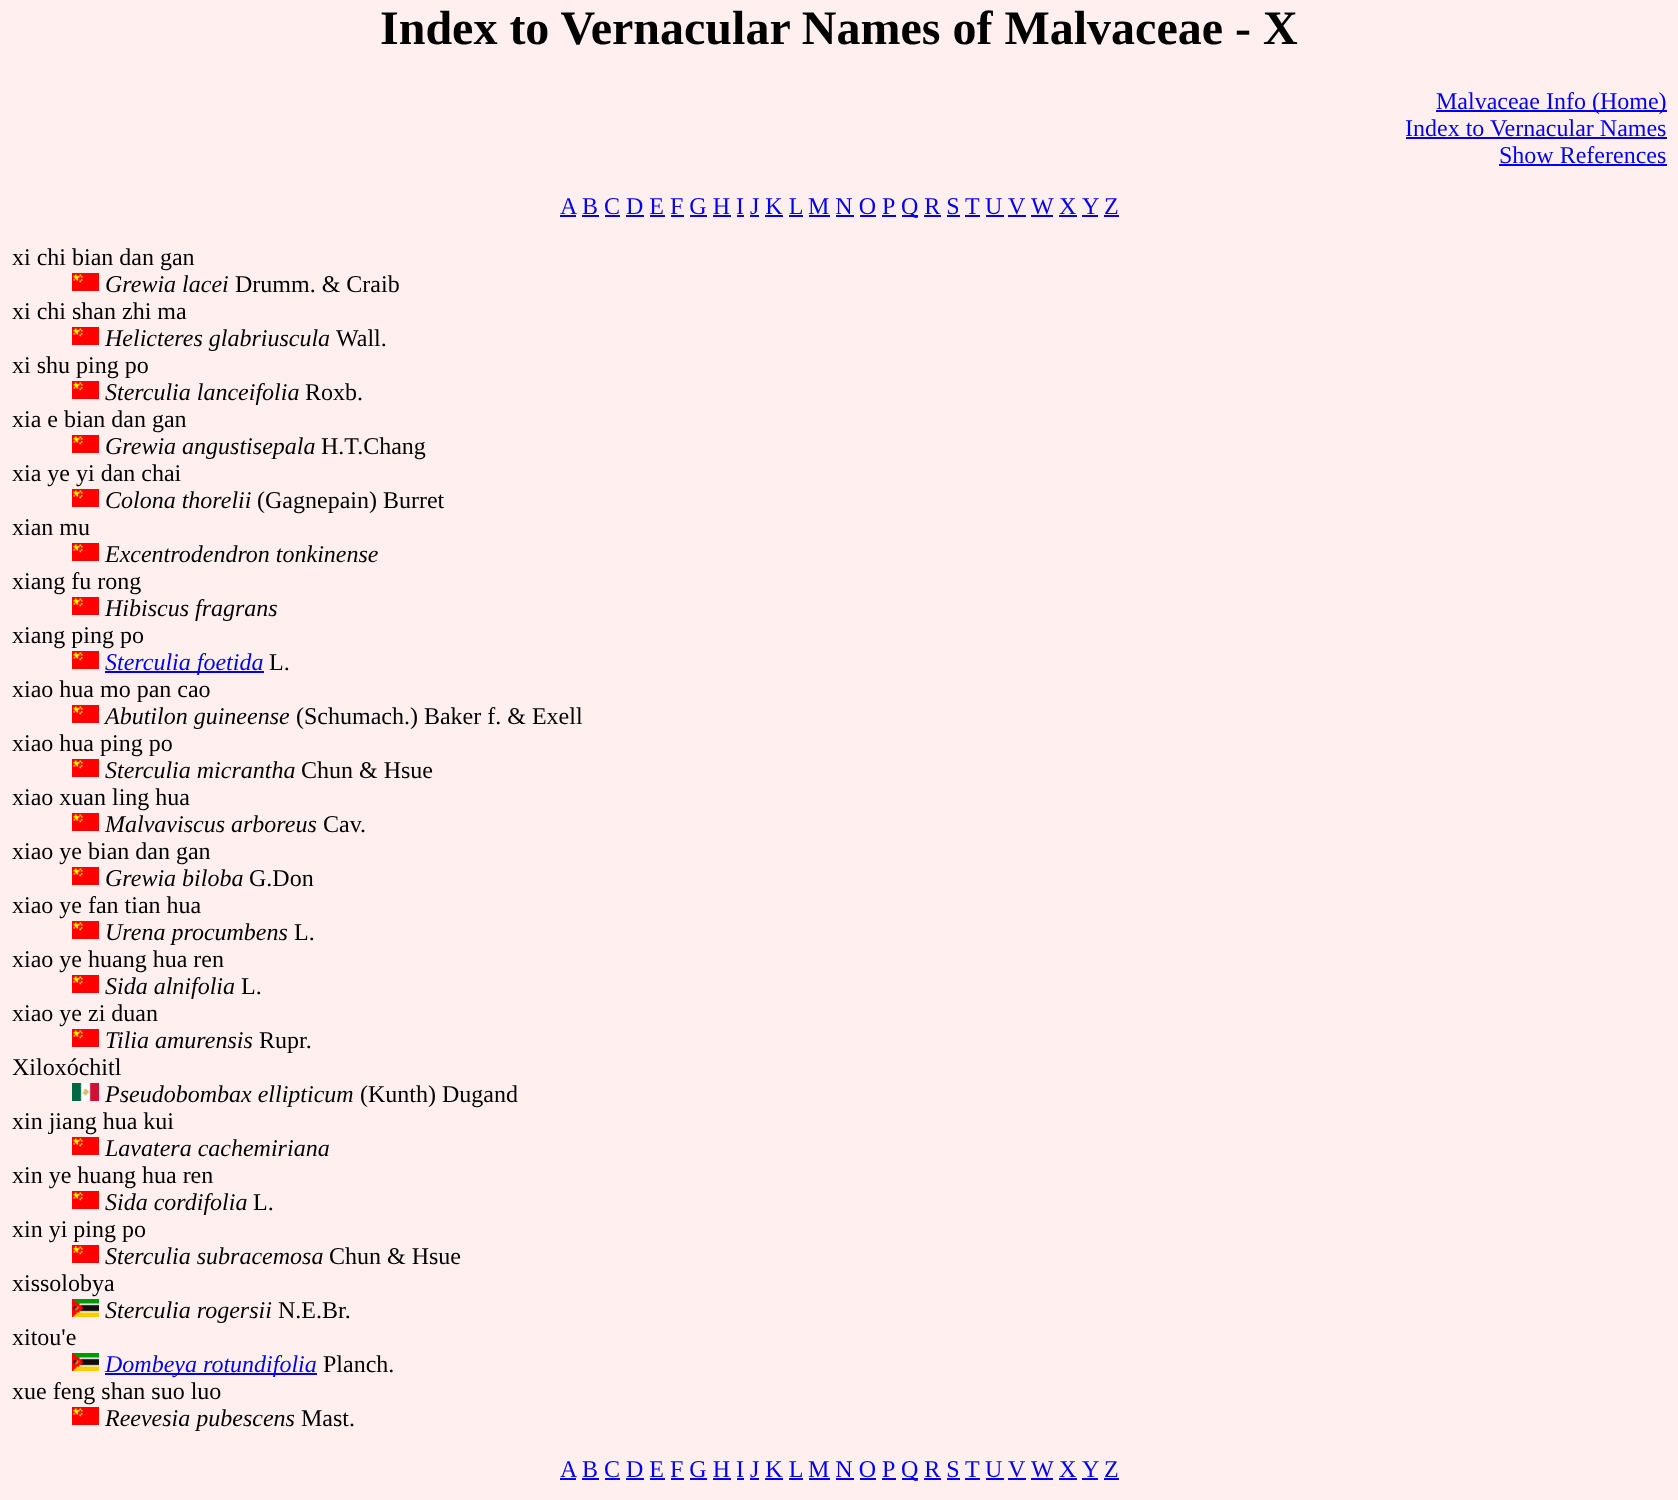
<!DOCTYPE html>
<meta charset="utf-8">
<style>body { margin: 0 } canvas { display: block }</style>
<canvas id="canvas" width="1678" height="1500"></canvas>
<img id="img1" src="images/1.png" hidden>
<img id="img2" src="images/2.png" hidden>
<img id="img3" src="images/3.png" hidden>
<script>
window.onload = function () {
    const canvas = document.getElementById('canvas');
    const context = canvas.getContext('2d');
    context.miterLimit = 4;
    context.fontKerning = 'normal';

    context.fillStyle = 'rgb(255, 239, 239)';
    context.fillRect(0, 0, 1678, 1500);
    context.fillStyle = 'rgb(0, 0, 238)';
    context.fillRect(1436, 110, 231, 2);
    context.fillRect(1406, 137, 261, 2);
    context.fillRect(1499, 164, 168, 2);
    context.fillRect(560, 215, 16, 2);
    context.fillRect(582, 215, 17, 2);
    context.fillRect(809, 215, 21, 2);
    context.fillRect(902, 215, 16, 2);
    context.fillRect(965, 215, 15, 2);
    context.fillRect(986, 215, 18, 2);
    context.fillRect(1008, 215, 18, 2);
    context.fillRect(1031, 215, 22, 2);
    context.fillRect(1059, 215, 18, 2);
    context.fillRect(1082, 215, 16, 2);
    context.fillRect(1104, 215, 15, 2);
    context.fillRect(605, 215, 15, 2);
    context.fillRect(626, 215, 18, 2);
    context.fillRect(650, 215, 15, 2);
    context.fillRect(671, 215, 13, 2);
    context.fillRect(690, 215, 17, 2);
    context.fillRect(713, 215, 18, 2);
    context.fillRect(737, 215, 7, 2);
    context.fillRect(750, 215, 9, 2);
    context.fillRect(765, 215, 18, 2);
    context.fillRect(789, 215, 14, 2);
    context.fillRect(836, 215, 18, 2);
    context.fillRect(860, 215, 16, 2);
    context.fillRect(882, 215, 14, 2);
    context.fillRect(924, 215, 17, 2);
    context.fillRect(947, 215, 13, 2);
    context.drawImage(document.getElementById('img1'), 72, 273, 27, 18);
    context.drawImage(document.getElementById('img1'), 72, 327, 27, 18);
    context.drawImage(document.getElementById('img1'), 72, 381, 27, 18);
    context.drawImage(document.getElementById('img1'), 72, 435, 27, 18);
    context.drawImage(document.getElementById('img1'), 72, 489, 27, 18);
    context.drawImage(document.getElementById('img1'), 72, 543, 27, 18);
    context.drawImage(document.getElementById('img1'), 72, 597, 27, 18);
    context.drawImage(document.getElementById('img1'), 72, 651, 27, 18);
    context.fillRect(105, 671, 159, 2);
    context.drawImage(document.getElementById('img1'), 72, 705, 27, 18);
    context.drawImage(document.getElementById('img1'), 72, 759, 27, 18);
    context.drawImage(document.getElementById('img1'), 72, 813, 27, 18);
    context.drawImage(document.getElementById('img1'), 72, 867, 27, 18);
    context.drawImage(document.getElementById('img1'), 72, 921, 27, 18);
    context.drawImage(document.getElementById('img1'), 72, 975, 27, 18);
    context.drawImage(document.getElementById('img1'), 72, 1029, 27, 18);
    context.drawImage(document.getElementById('img2'), 72, 1083, 27, 18);
    context.drawImage(document.getElementById('img1'), 72, 1137, 27, 18);
    context.drawImage(document.getElementById('img1'), 72, 1191, 27, 18);
    context.drawImage(document.getElementById('img1'), 72, 1245, 27, 18);
    context.drawImage(document.getElementById('img3'), 72, 1299, 27, 18);
    context.drawImage(document.getElementById('img3'), 72, 1353, 27, 18);
    context.fillRect(105, 1373, 212, 2);
    context.drawImage(document.getElementById('img1'), 72, 1407, 27, 18);
    context.fillRect(560, 1478, 16, 2);
    context.fillRect(582, 1478, 17, 2);
    context.fillRect(809, 1478, 21, 2);
    context.fillRect(902, 1478, 16, 2);
    context.fillRect(965, 1478, 15, 2);
    context.fillRect(986, 1478, 18, 2);
    context.fillRect(1008, 1478, 18, 2);
    context.fillRect(1031, 1478, 22, 2);
    context.fillRect(1059, 1478, 18, 2);
    context.fillRect(1082, 1478, 16, 2);
    context.fillRect(1104, 1478, 15, 2);
    context.fillRect(605, 1478, 15, 2);
    context.fillRect(626, 1478, 18, 2);
    context.fillRect(650, 1478, 15, 2);
    context.fillRect(671, 1478, 13, 2);
    context.fillRect(690, 1478, 17, 2);
    context.fillRect(713, 1478, 18, 2);
    context.fillRect(737, 1478, 7, 2);
    context.fillRect(750, 1478, 9, 2);
    context.fillRect(765, 1478, 18, 2);
    context.fillRect(789, 1478, 14, 2);
    context.fillRect(836, 1478, 18, 2);
    context.fillRect(860, 1478, 16, 2);
    context.fillRect(882, 1478, 14, 2);
    context.fillRect(924, 1478, 17, 2);
    context.fillRect(947, 1478, 13, 2);
    context.font = 'bold 48px Liberation Serif';
    context.fillStyle = 'rgb(0, 0, 0)';
    context.fillText('Index to Vernacular Names of Malvaceae - X', 380, 44);
    context.font = '24px Liberation Serif';
    context.fillStyle = 'rgb(0, 0, 238)';
    context.fillText('Malvaceae Info (Home)', 1436, 109);
    context.fillText('Index to Vernacular Names', 1405, 136);
    context.fillText('Show References', 1499, 163);
    context.fillText('A', 560, 214);
    context.fillText('B C D E F G H I J K L', 582, 214);
    context.fillText('M N O P', 808, 214);
    context.fillText('Q R S', 901, 214);
    context.fillText('T', 965, 214);
    context.fillText('U', 985, 214);
    context.fillText('V', 1008, 214);
    context.fillText('W', 1031, 214);
    context.fillText('X', 1059, 214);
    context.fillText('Y', 1082, 214);
    context.fillText('Z', 1104, 214);
    context.fillStyle = 'rgb(0, 0, 0)';
    context.fillText('xi chi bian dan gan', 12, 265);
    context.font = 'italic 24px Liberation Serif';
    context.fillText('Grewia lacei', 105, 292);
    context.font = '24px Liberation Serif';
    context.fillText('Drumm. & Craib', 235, 292);
    context.fillText('xi chi shan zhi ma', 12, 319);
    context.font = 'italic 24px Liberation Serif';
    context.fillText('Helicteres glabriuscula', 105, 346);
    context.font = '24px Liberation Serif';
    context.fillText('Wall.', 336, 346);
    context.fillText('xi shu ping po', 12, 373);
    context.font = 'italic 24px Liberation Serif';
    context.fillText('Sterculia lanceifolia', 105, 400);
    context.font = '24px Liberation Serif';
    context.fillText('Roxb.', 305, 400);
    context.fillText('xia e bian dan gan', 12, 427);
    context.font = 'italic 24px Liberation Serif';
    context.fillText('Grewia angustisepala', 105, 454);
    context.font = '24px Liberation Serif';
    context.fillText('H.T.Chang', 321, 454);
    context.fillText('xia ye yi dan chai', 12, 481);
    context.font = 'italic 24px Liberation Serif';
    context.fillText('Colona thorelii', 105, 508);
    context.font = '24px Liberation Serif';
    context.fillText('(Gagnepain) Burret', 257, 508);
    context.fillText('xian mu', 12, 535);
    context.font = 'italic 24px Liberation Serif';
    context.fillText('Excentrodendron tonkinense', 105, 562);
    context.font = '24px Liberation Serif';
    context.fillText('xiang fu rong', 12, 589);
    context.font = 'italic 24px Liberation Serif';
    context.fillText('Hibiscus fragrans', 105, 616);
    context.font = '24px Liberation Serif';
    context.fillText('xiang ping po', 12, 643);
    context.font = 'italic 24px Liberation Serif';
    context.fillStyle = 'rgb(0, 0, 238)';
    context.fillText('Sterculia foetida', 105, 670);
    context.font = '24px Liberation Serif';
    context.fillStyle = 'rgb(0, 0, 0)';
    context.fillText('L.', 269, 670);
    context.fillText('xiao hua mo pan cao', 12, 697);
    context.font = 'italic 24px Liberation Serif';
    context.fillText('Abutilon guineense', 105, 724);
    context.font = '24px Liberation Serif';
    context.fillText('(Schumach.) Baker f. & Exell', 296, 724);
    context.fillText('xiao hua ping po', 12, 751);
    context.font = 'italic 24px Liberation Serif';
    context.fillText('Sterculia micrantha', 105, 778);
    context.font = '24px Liberation Serif';
    context.fillText('Chun & Hsue', 301, 778);
    context.fillText('xiao xuan ling hua', 12, 805);
    context.font = 'italic 24px Liberation Serif';
    context.fillText('Malvaviscus arboreus', 105, 832);
    context.font = '24px Liberation Serif';
    context.fillText('Cav.', 323, 832);
    context.fillText('xiao ye bian dan gan', 12, 859);
    context.font = 'italic 24px Liberation Serif';
    context.fillText('Grewia biloba', 105, 886);
    context.font = '24px Liberation Serif';
    context.fillText('G.Don', 249, 886);
    context.fillText('xiao ye fan tian hua', 12, 913);
    context.font = 'italic 24px Liberation Serif';
    context.fillText('Urena procumbens', 105, 940);
    context.font = '24px Liberation Serif';
    context.fillText('L.', 294, 940);
    context.fillText('xiao ye huang hua ren', 12, 967);
    context.font = 'italic 24px Liberation Serif';
    context.fillText('Sida alnifolia', 105, 994);
    context.font = '24px Liberation Serif';
    context.fillText('L.', 241, 994);
    context.fillText('xiao ye zi duan', 12, 1021);
    context.font = 'italic 24px Liberation Serif';
    context.fillText('Tilia amurensis', 105, 1048);
    context.font = '24px Liberation Serif';
    context.fillText('Rupr.', 259, 1048);
    context.fillText('Xiloxóchitl', 12, 1075);
    context.font = 'italic 24px Liberation Serif';
    context.fillText('Pseudobombax ellipticum', 105, 1102);
    context.font = '24px Liberation Serif';
    context.fillText('(Kunth) Dugand', 360, 1102);
    context.fillText('xin jiang hua kui', 12, 1129);
    context.font = 'italic 24px Liberation Serif';
    context.fillText('Lavatera cachemiriana', 105, 1156);
    context.font = '24px Liberation Serif';
    context.fillText('xin ye huang hua ren', 12, 1183);
    context.font = 'italic 24px Liberation Serif';
    context.fillText('Sida cordifolia', 105, 1210);
    context.font = '24px Liberation Serif';
    context.fillText('L.', 253, 1210);
    context.fillText('xin yi ping po', 12, 1237);
    context.font = 'italic 24px Liberation Serif';
    context.fillText('Sterculia subracemosa', 105, 1264);
    context.font = '24px Liberation Serif';
    context.fillText('Chun & Hsue', 329, 1264);
    context.fillText('xissolobya', 12, 1291);
    context.font = 'italic 24px Liberation Serif';
    context.fillText('Sterculia rogersii', 105, 1318);
    context.font = '24px Liberation Serif';
    context.fillText('N.E.Br.', 278, 1318);
    context.fillText('xitou\'e', 12, 1345);
    context.font = 'italic 24px Liberation Serif';
    context.fillStyle = 'rgb(0, 0, 238)';
    context.fillText('Dombeya rotundifolia', 105, 1372);
    context.font = '24px Liberation Serif';
    context.fillStyle = 'rgb(0, 0, 0)';
    context.fillText('Planch.', 323, 1372);
    context.fillText('xue feng shan suo luo', 12, 1399);
    context.font = 'italic 24px Liberation Serif';
    context.fillText('Reevesia pubescens', 105, 1426);
    context.font = '24px Liberation Serif';
    context.fillText('Mast.', 301, 1426);
    context.fillStyle = 'rgb(0, 0, 238)';
    context.fillText('A', 560, 1477);
    context.fillText('B C D E F G H I J K L', 582, 1477);
    context.fillText('M N O P', 808, 1477);
    context.fillText('Q R S', 901, 1477);
    context.fillText('T', 965, 1477);
    context.fillText('U', 985, 1477);
    context.fillText('V', 1008, 1477);
    context.fillText('W', 1031, 1477);
    context.fillText('X', 1059, 1477);
    context.fillText('Y', 1082, 1477);
    context.fillText('Z', 1104, 1477);
};
</script>
